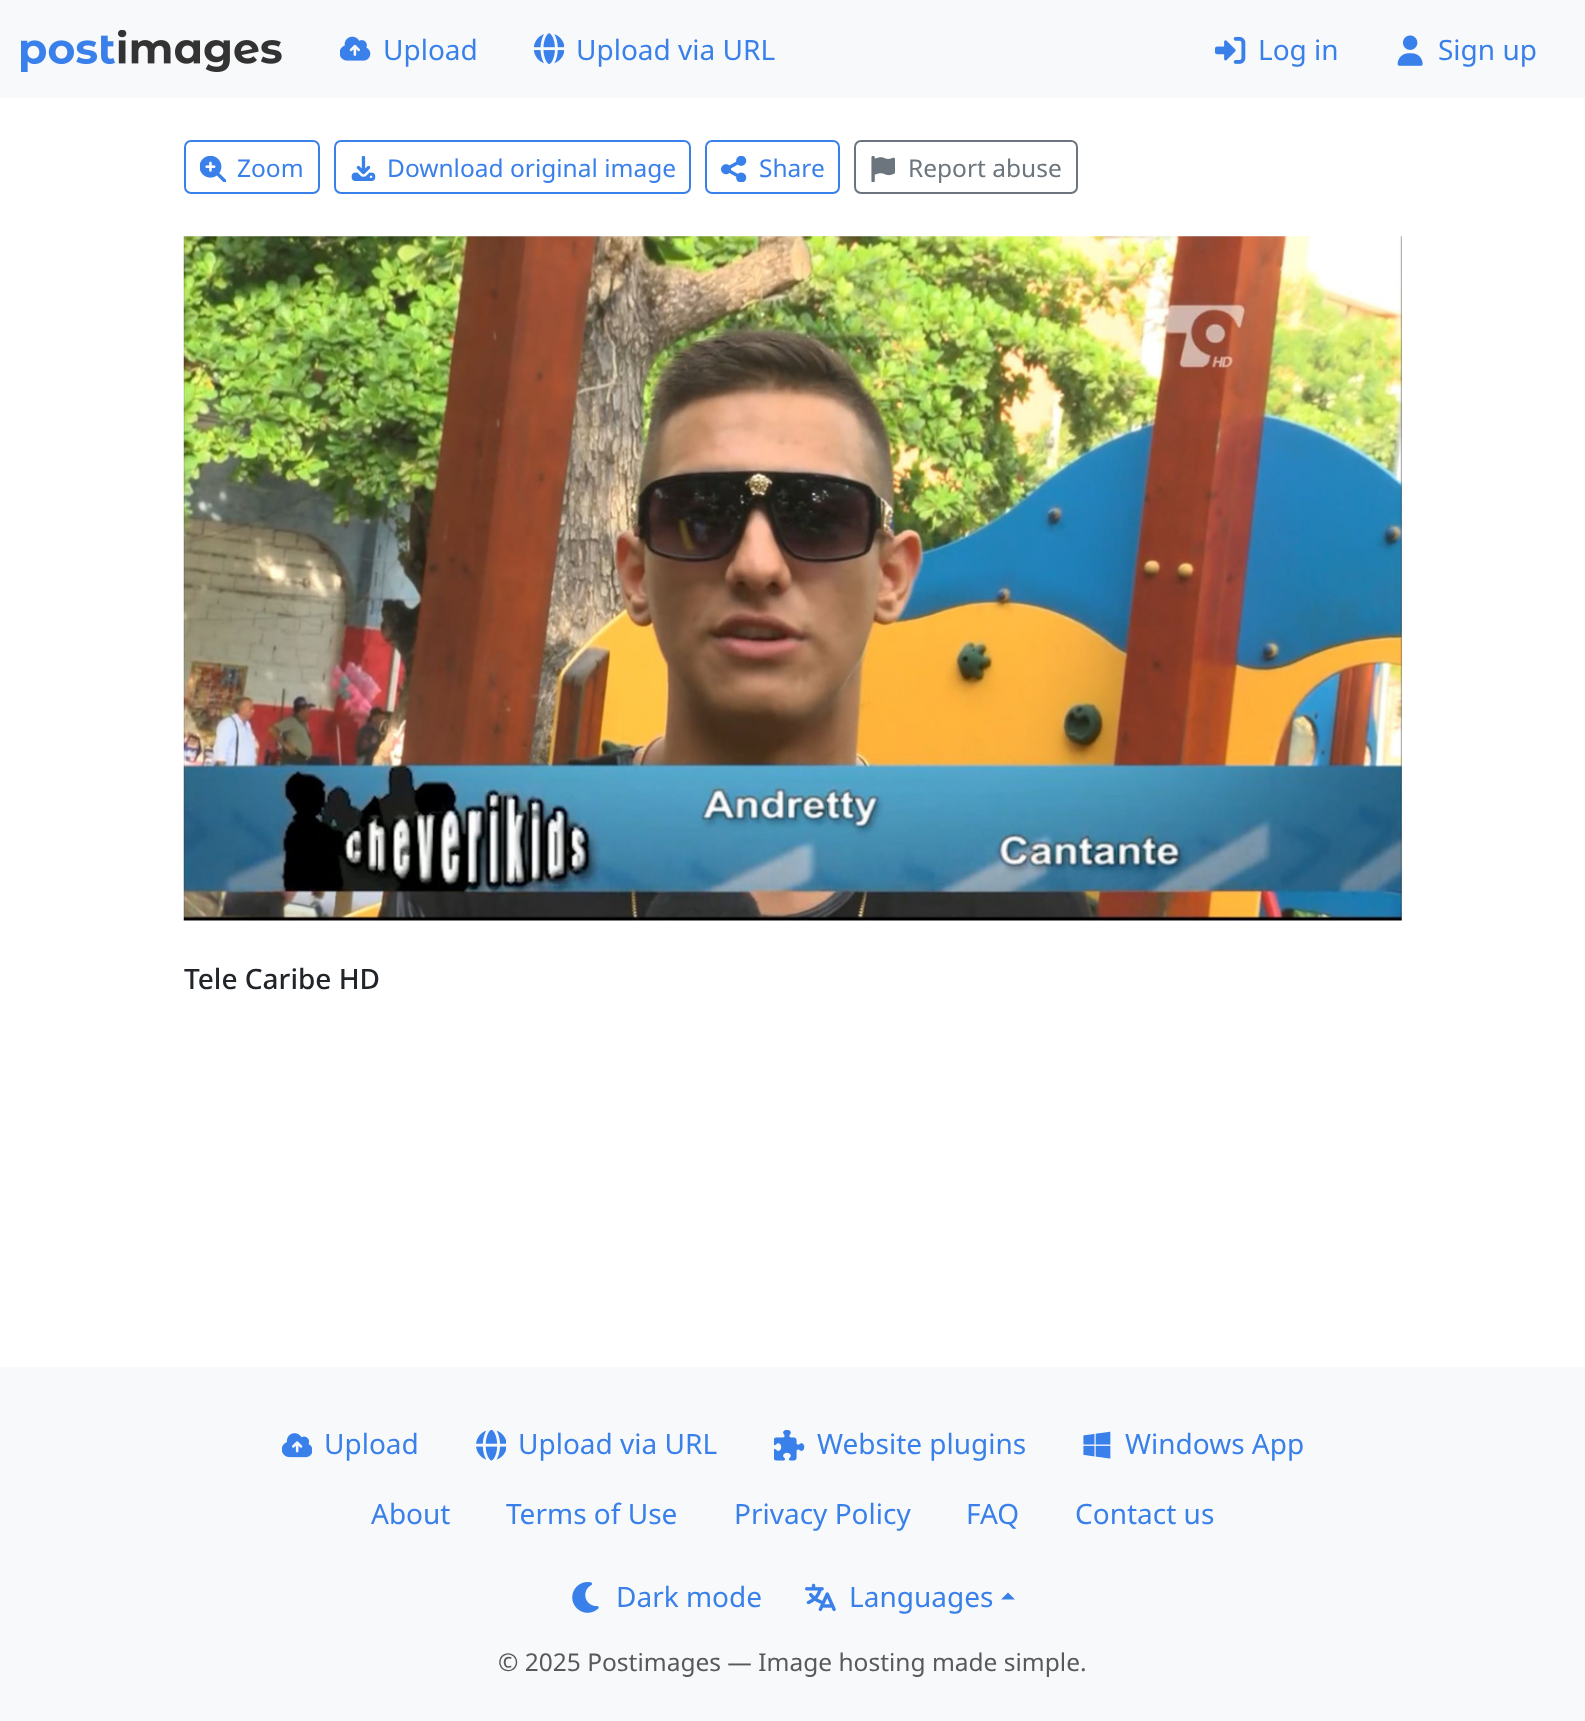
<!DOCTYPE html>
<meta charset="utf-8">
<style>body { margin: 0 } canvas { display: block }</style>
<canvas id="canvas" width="1585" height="1721"></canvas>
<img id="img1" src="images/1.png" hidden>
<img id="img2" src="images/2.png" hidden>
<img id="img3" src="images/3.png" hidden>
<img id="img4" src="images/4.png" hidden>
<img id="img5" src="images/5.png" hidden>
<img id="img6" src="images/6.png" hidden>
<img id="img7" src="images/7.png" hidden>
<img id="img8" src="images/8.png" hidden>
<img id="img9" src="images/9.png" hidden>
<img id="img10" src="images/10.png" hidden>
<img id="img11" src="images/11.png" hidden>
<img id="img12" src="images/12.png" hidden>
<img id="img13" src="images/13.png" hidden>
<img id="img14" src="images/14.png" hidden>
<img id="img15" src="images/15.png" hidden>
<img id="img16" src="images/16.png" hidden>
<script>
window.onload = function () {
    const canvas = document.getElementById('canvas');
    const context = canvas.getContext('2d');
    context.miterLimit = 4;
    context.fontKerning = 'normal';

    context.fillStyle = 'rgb(255, 255, 255)';
    context.fillRect(0, 0, 1585, 1721);
    context.fillStyle = 'rgb(248, 249, 250)';
    context.fillRect(0, 0, 1585, 98);
    context.drawImage(document.getElementById('img1'), 21, 30, 261, 42);
    context.drawImage(document.getElementById('img2'), 340, 36, 31, 25);
    context.drawImage(document.getElementById('img3'), 534, 33, 30, 31);
    context.drawImage(document.getElementById('img4'), 1215, 36, 31, 28);
    context.drawImage(document.getElementById('img5'), 1397, 35, 26, 31);
    context.beginPath();
    context.roundRect(185, 141, 134, 52, 6);
    context.strokeStyle = 'rgb(58, 128, 234)';
    context.lineWidth = 2;
    context.stroke();
    context.drawImage(document.getElementById('img6'), 200, 156, 26, 26);
    context.beginPath();
    context.roundRect(335, 141, 355, 52, 6);
    context.stroke();
    context.drawImage(document.getElementById('img7'), 351, 156, 25, 25);
    context.beginPath();
    context.roundRect(706, 141, 133, 52, 6);
    context.stroke();
    context.drawImage(document.getElementById('img8'), 721, 156, 26, 26);
    context.beginPath();
    context.roundRect(855, 141, 222, 52, 6);
    context.strokeStyle = 'rgb(108, 117, 125)';
    context.stroke();
    context.drawImage(document.getElementById('img9'), 871, 156, 24, 26);
    context.drawImage(document.getElementById('img10'), 183, 236, 1219, 685);
    context.fillRect(0, 1367, 1585, 354);
    context.drawImage(document.getElementById('img11'), 282, 1433, 30, 25);
    context.drawImage(document.getElementById('img12'), 476, 1430, 30, 31);
    context.drawImage(document.getElementById('img13'), 774, 1430, 31, 31);
    context.drawImage(document.getElementById('img14'), 1083, 1431, 28, 28);
    context.drawImage(document.getElementById('img15'), 572, 1582, 27, 31);
    context.drawImage(document.getElementById('img16'), 805, 1583, 31, 29);
    context.fillStyle = 'rgb(58, 128, 234)';
    context.beginPath();
    context.moveTo(1015, 1599.5);
    context.lineTo(1001, 1599.5);
    context.lineTo(1008, 1592.5);
    context.closePath();
    context.fill();
    context.font = '28px Noto Sans';
    context.fillText('Upload', 383, 60);
    context.fillText('Upload via URL', 576, 60);
    context.fillText('Log in', 1258, 60);
    context.fillText('Sign up', 1438, 60);
    context.font = '24.5px Noto Sans';
    context.fillText('Zoom', 237, 177);
    context.fillText('Download original image', 387, 177);
    context.fillText('Share', 759, 177);
    context.fillStyle = 'rgb(108, 117, 125)';
    context.fillText('Report abuse', 908, 177);
    context.font = '500 28px Noto Sans';
    context.fillStyle = 'rgb(33, 37, 41)';
    context.fillText('Tele Caribe HD', 184, 989);
    context.font = '28px Noto Sans';
    context.fillStyle = 'rgb(58, 128, 234)';
    context.fillText('Upload', 324, 1454);
    context.fillText('Upload via URL', 518, 1454);
    context.fillText('Website plugins', 817, 1454);
    context.fillText('Windows App', 1125, 1454);
    context.fillText('About', 371, 1524);
    context.fillText('Terms of Use', 506, 1524);
    context.fillText('Privacy Policy', 734, 1524);
    context.fillText('FAQ', 966, 1524);
    context.fillText('Contact us', 1075, 1524);
    context.fillText('Dark mode', 616, 1607);
    context.fillText('Languages', 849, 1607);
    context.font = '24.5px Noto Sans';
    context.fillStyle = 'rgb(87, 90, 93)';
    context.fillText('© 2025 Postimages — Image hosting made simple.', 498, 1671);
};
</script>
